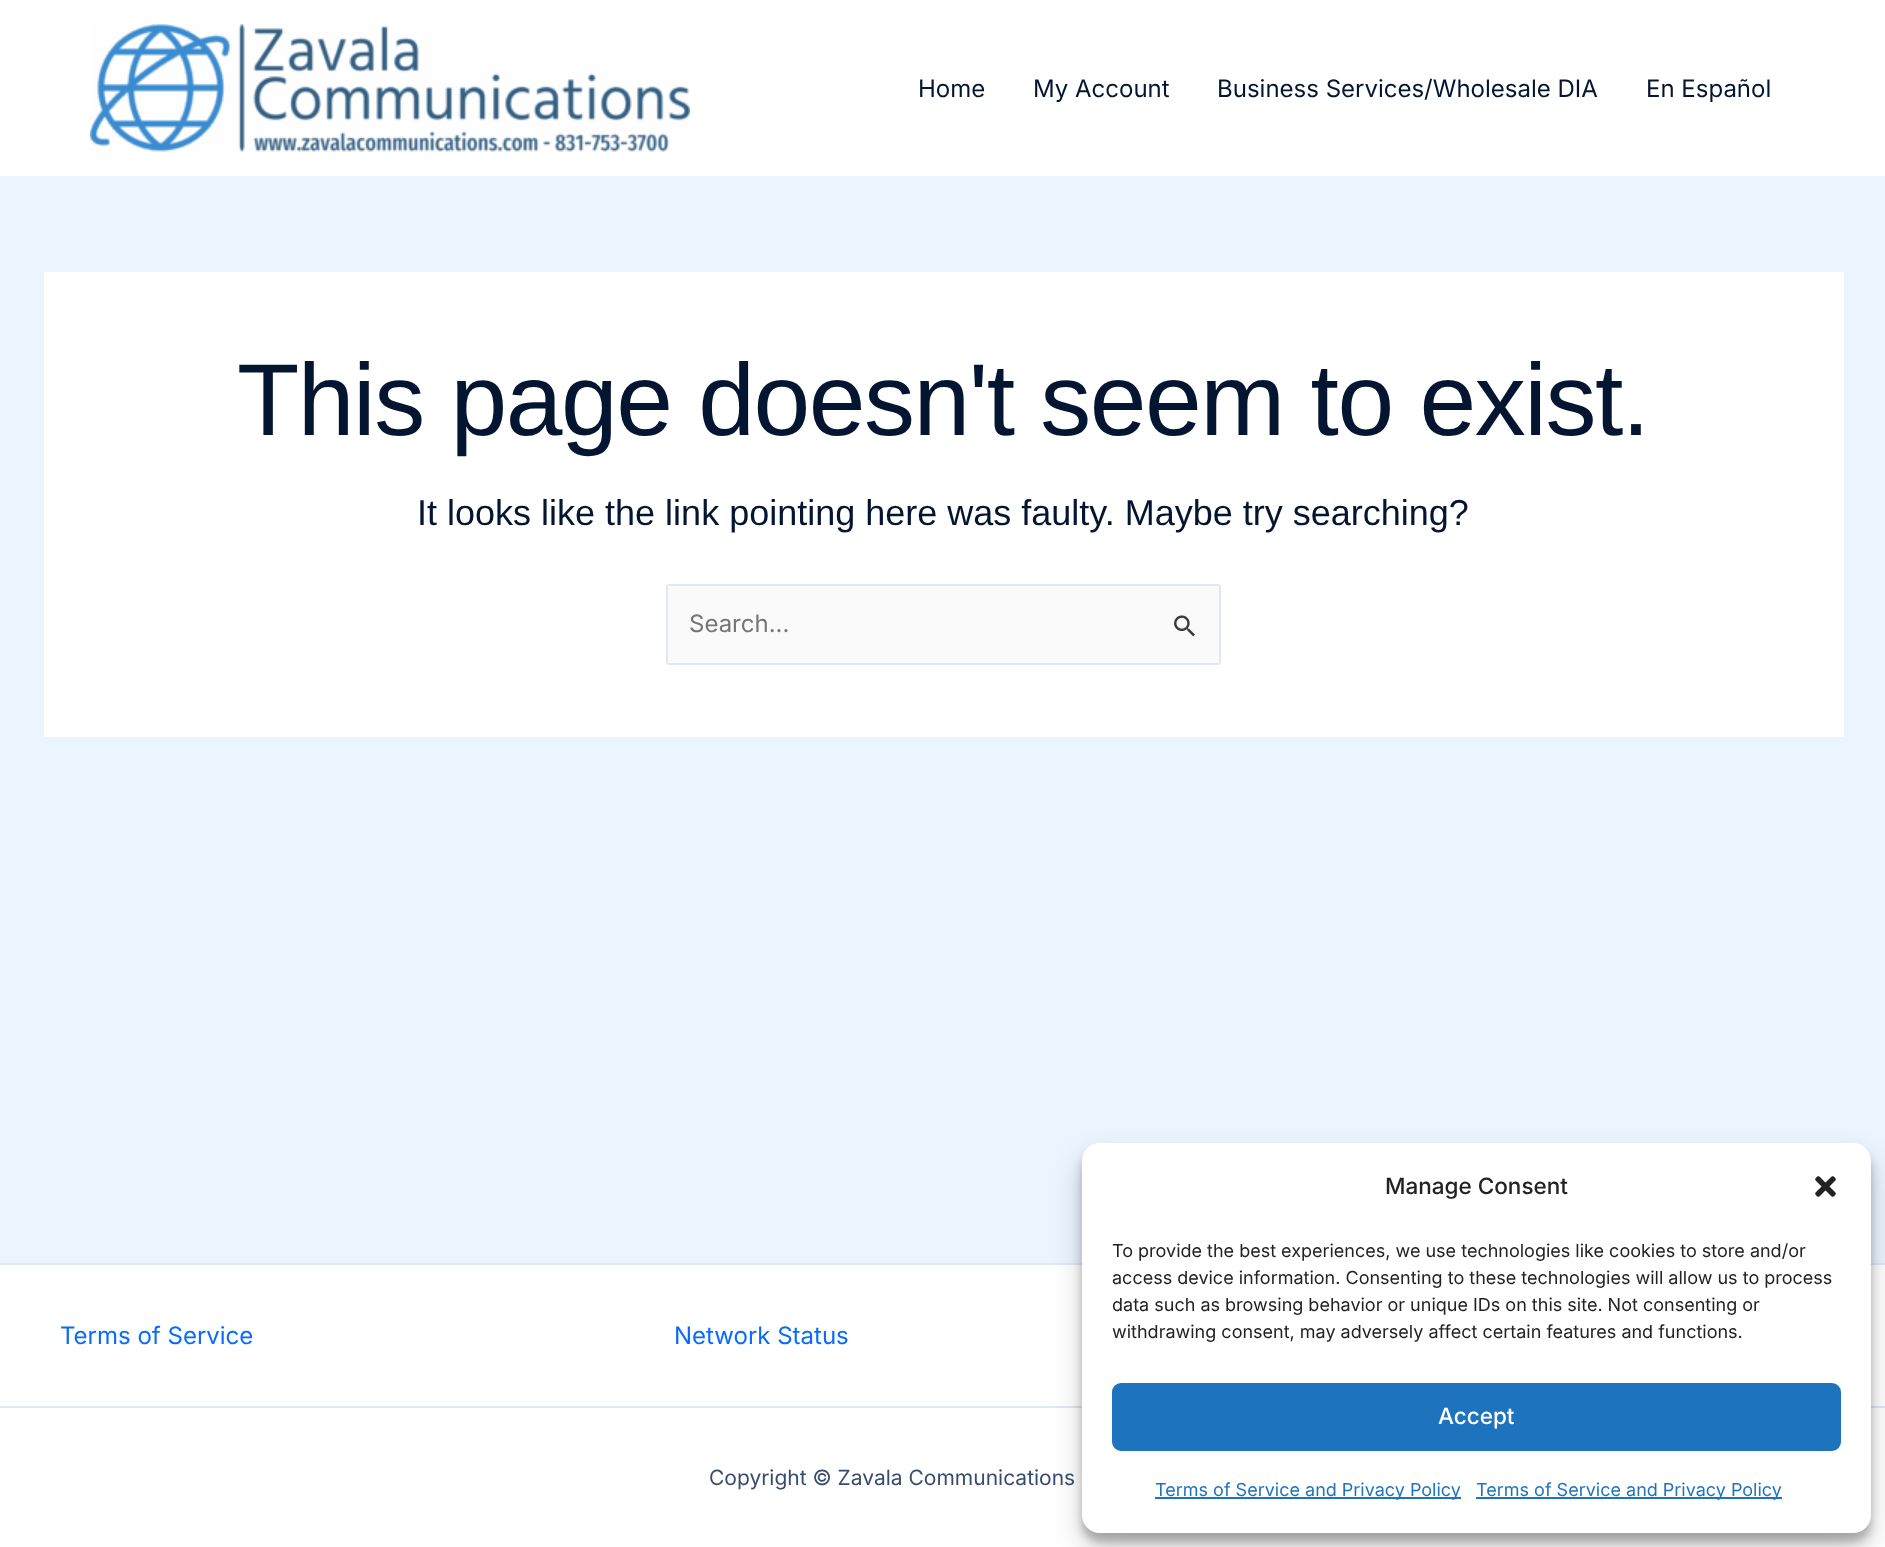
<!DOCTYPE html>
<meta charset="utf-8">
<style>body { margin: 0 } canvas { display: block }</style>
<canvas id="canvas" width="1885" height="1547"></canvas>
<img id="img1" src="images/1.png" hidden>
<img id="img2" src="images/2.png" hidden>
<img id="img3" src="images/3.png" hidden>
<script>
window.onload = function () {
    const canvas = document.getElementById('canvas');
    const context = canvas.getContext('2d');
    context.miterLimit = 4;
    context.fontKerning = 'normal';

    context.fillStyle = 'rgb(235, 245, 255)';
    context.fillRect(0, 0, 1885, 1547);
    context.fillStyle = 'rgb(255, 255, 255)';
    context.fillRect(0, 0, 1885, 176);
    context.drawImage(document.getElementById('img1'), 90, 24, 600, 128);
    context.fillRect(44, 272, 1800, 465);
    context.fillStyle = 'rgb(250, 250, 250)';
    context.beginPath();
    context.roundRect(667, 585, 553, 79, 2);
    context.fill();
    context.strokeStyle = 'rgb(226, 232, 240)';
    context.lineWidth = 2;
    context.stroke();
    context.drawImage(document.getElementById('img2'), 1174, 615, 21, 22);
    context.fillStyle = 'rgb(255, 255, 255)';
    context.fillRect(0, 1265, 1885, 141);
    context.fillStyle = 'rgb(226, 232, 240)';
    context.fillRect(0, 1263, 1885, 2);
    context.fillStyle = 'rgb(255, 255, 255)';
    context.fillRect(0, 1408, 1885, 139);
    context.fillStyle = 'rgb(226, 232, 240)';
    context.fillRect(0, 1406, 1885, 2);
    context.fillStyle = 'rgba(0, 0, 0, 0.23)';
    context.filter = 'blur(4.5px)';
    context.beginPath();
    context.roundRect(1082, 1152, 789, 390, 18);
    context.fill();
    context.filter = 'none';
    context.fillStyle = 'rgba(0, 0, 0, 0.19)';
    context.filter = 'blur(15px)';
    context.beginPath();
    context.roundRect(1082, 1158, 789, 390, 18);
    context.fill();
    context.filter = 'none';
    context.fillStyle = 'rgb(255, 255, 255)';
    context.beginPath();
    context.roundRect(1082, 1143, 789, 390, 18);
    context.fill();
    context.drawImage(document.getElementById('img3'), 1815, 1176, 21, 21);
    context.fillStyle = 'rgb(30, 115, 190)';
    context.beginPath();
    context.roundRect(1113, 1384, 727, 66, 8);
    context.fill();
    context.strokeStyle = 'rgb(30, 115, 190)';
    context.stroke();
    context.fillRect(1155, 1497, 306, 2);
    context.fillRect(1476, 1497, 306, 2);
    context.font = '24px Inter';
    context.fillStyle = 'rgb(3, 21, 48)';
    context.fillText('Home', 918, 97);
    context.fillText('My Account', 1033, 97);
    context.fillText('Business Services/Wholesale DIA', 1217, 97);
    context.fillText('En Español', 1646, 97);
    context.letterSpacing = '-1.5px';
    context.font = '102px Liberation Sans';
    context.fillText('This page doesn\'t seem to exist.', 237, 435);
    context.letterSpacing = '0px';
    context.font = '36px Liberation Sans';
    context.fillText('It looks like the link pointing here was faulty. Maybe try searching?', 417, 525);
    context.font = '24px Inter';
    context.fillStyle = 'rgb(117, 117, 117)';
    context.fillText('Search...', 689, 632);
    context.fillStyle = 'rgb(8, 106, 254)';
    context.fillText('Terms of Service', 60, 1344);
    context.fillText('Network Status', 674, 1344);
    context.font = '21px Inter';
    context.fillStyle = 'rgb(55, 76, 108)';
    context.fillText('Copyright © Zavala Communications', 709, 1485);
    context.font = '500 22.5px Inter';
    context.fillStyle = 'rgb(34, 34, 34)';
    context.fillText('Manage Consent', 1385, 1194);
    context.font = '18px Inter';
    context.fillText('To provide the best experiences, we use technologies like cookies to store and/or', 1112, 1257);
    context.fillText('access device information. Consenting to these technologies will allow us to process', 1112, 1284);
    context.fillText('data such as browsing behavior or unique IDs on this site. Not consenting or', 1112, 1311);
    context.fillText('withdrawing consent, may adversely affect certain features and functions.', 1112, 1338);
    context.font = '500 22.5px Inter';
    context.fillStyle = 'rgb(255, 255, 255)';
    context.fillText('Accept', 1438, 1424);
    context.font = '18px Inter';
    context.fillStyle = 'rgb(30, 115, 190)';
    context.fillText('Terms of Service and Privacy Policy', 1155, 1496);
    context.fillText('Terms of Service and Privacy Policy', 1476, 1496);
};
</script>
